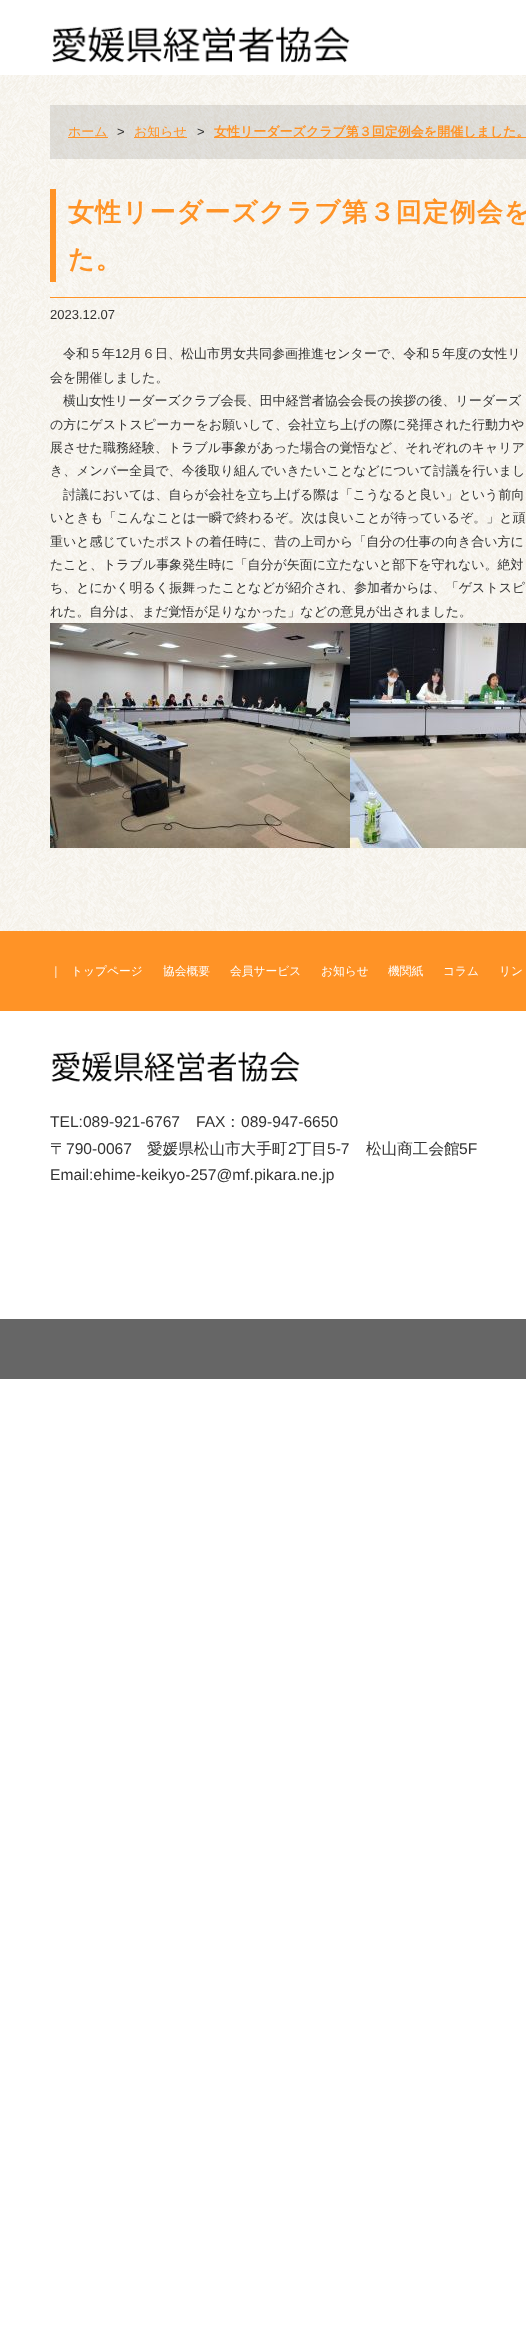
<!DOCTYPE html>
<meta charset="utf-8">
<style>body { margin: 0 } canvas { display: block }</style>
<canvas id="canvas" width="526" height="2329"></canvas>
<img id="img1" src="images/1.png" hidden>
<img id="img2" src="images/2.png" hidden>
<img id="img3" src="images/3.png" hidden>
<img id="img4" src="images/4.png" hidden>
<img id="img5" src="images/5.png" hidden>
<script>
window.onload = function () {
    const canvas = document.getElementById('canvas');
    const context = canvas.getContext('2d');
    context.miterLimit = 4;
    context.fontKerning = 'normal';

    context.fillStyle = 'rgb(255, 255, 255)';
    context.fillRect(0, 0, 526, 2329);
    context.drawImage(document.getElementById('img1'), 52, 26, 298, 37);
    context.drawImage(document.getElementById('img2'), 0, 75, 526, 856);
    context.fillStyle = 'rgba(10, 10, 10, 0.1)';
    context.fillRect(50, 105, 476, 54);
    context.fillStyle = 'rgb(255, 147, 38)';
    context.fillRect(68, 137, 40, 1);
    context.fillRect(134, 137, 53, 1);
    context.fillRect(214, 137, 312, 1);
    context.fillRect(50, 189, 6, 93);
    context.fillRect(50, 297, 476, 1);
    context.drawImage(document.getElementById('img3'), 50, 623, 300, 225);
    context.drawImage(document.getElementById('img4'), 350, 623, 176, 225);
    context.fillRect(0, 931, 526, 80);
    context.drawImage(document.getElementById('img5'), 51, 1051, 249, 31);
    context.fillStyle = 'rgb(102, 102, 102)';
    context.fillRect(0, 1319, 526, 60);
    context.font = '500 13px WenQuanYi Zen Hei';
    context.fillStyle = 'rgb(255, 147, 38)';
    context.fillText('ホーム', 68, 136);
    context.font = '13px Liberation Sans';
    context.fillStyle = 'rgb(51, 51, 51)';
    context.fillText('>', 117, 136);
    context.font = '500 13px WenQuanYi Zen Hei';
    context.fillStyle = 'rgb(255, 147, 38)';
    context.fillText('お知らせ', 134, 136);
    context.font = '13px Liberation Sans';
    context.fillStyle = 'rgb(51, 51, 51)';
    context.fillText('>', 197, 136);
    context.font = 'bold 13px WenQuanYi Zen Hei';
    context.fillStyle = 'rgb(255, 147, 38)';
    context.fillText('女性リーダーズクラブ第３回定例会を開催しました。', 214, 136);
    context.letterSpacing = '1px';
    context.font = 'bold 26px WenQuanYi Zen Hei';
    context.fillText('女性リーダーズクラブ第３回定例会を', 68, 221);
    context.fillText('た。', 68, 268);
    context.letterSpacing = '0px';
    context.font = '13px Liberation Sans';
    context.fillStyle = 'rgb(51, 51, 51)';
    context.fillText('2023.12.07', 50, 319);
    context.font = '500 13px WenQuanYi Zen Hei';
    context.fillText('令和５年', 63, 358);
    context.font = '13px Liberation Sans';
    context.fillText('12', 115, 358);
    context.font = '500 13px WenQuanYi Zen Hei';
    context.fillText('月６日、松山市男女共同参画推進センターで、令和５年度の女性リ', 129, 358);
    context.fillText('会を開催しました。', 50, 382);
    context.fillText('横山女性リーダーズクラブ会長、田中経営者協会会長の挨拶の後、リーダーズ', 63, 405);
    context.fillText('の方にゲストスピーカーをお願いして、会社立ち上げの際に発揮された行動力や', 50, 429);
    context.fillText('展させた職務経験、トラブル事象があった場合の覚悟など、それぞれのキャリア', 50, 452);
    context.fillText('き、メンバー全員で、今後取り組んでいきたいことなどについて討議を行いまし', 50, 475);
    context.fillText('討議においては、自らが会社を立ち上げる際は「こうなると良い」という前向', 63, 499);
    context.fillText('いときも「こんなことは一瞬で終わるぞ。次は良いことが待っているぞ。」と頑', 50, 522);
    context.fillText('重いと感じていたポストの着任時に、昔の上司から「自分の仕事の向き合い方に', 50, 546);
    context.fillText('たこと、トラブル事象発生時に「自分が矢面に立たないと部下を守れない。絶対', 50, 569);
    context.fillText('ち、とにかく明るく振舞ったことなどが紹介され、参加者からは、「ゲストスピ', 50, 592);
    context.fillText('れた。自分は、まだ覚悟が足りなかった」などの意見が出されました。', 50, 616);
    context.font = '500 11.75px WenQuanYi Zen Hei';
    context.fillStyle = 'rgb(255, 255, 255)';
    context.fillText('｜', 50, 975);
    context.fillText('トップページ', 71, 975);
    context.fillText('協会概要', 163, 975);
    context.fillText('会員サービス', 230, 975);
    context.fillText('お知らせ', 321, 975);
    context.fillText('機関紙', 388, 975);
    context.fillText('コラム', 443, 975);
    context.fillText('リン', 499, 975);
    context.font = '15.6px Liberation Sans';
    context.fillStyle = 'rgb(51, 51, 51)';
    context.fillText('TEL:089-921-6767', 50, 1127);
    context.fillText('FAX', 196, 1127);
    context.font = '500 15.6px WenQuanYi Zen Hei';
    context.fillText('：', 225, 1127);
    context.font = '15.6px Liberation Sans';
    context.fillText('089-947-6650', 241, 1127);
    context.font = '500 15.6px WenQuanYi Zen Hei';
    context.fillText('〒', 50, 1154);
    context.font = '15.6px Liberation Sans';
    context.fillText('790-0067', 66, 1154);
    context.font = '500 15.6px WenQuanYi Zen Hei';
    context.fillText('愛媛県松山市大手町', 147, 1154);
    context.font = '15.6px Liberation Sans';
    context.fillText('2', 288, 1154);
    context.font = '500 15.6px WenQuanYi Zen Hei';
    context.fillText('丁目', 296, 1154);
    context.font = '15.6px Liberation Sans';
    context.fillText('5-7', 327, 1154);
    context.font = '500 15.6px WenQuanYi Zen Hei';
    context.fillText('松山商工会館', 366, 1154);
    context.font = '15.6px Liberation Sans';
    context.fillText('5F', 459, 1154);
    context.fillText('Email:ehime-keikyo-257@mf.pikara.ne.jp', 50, 1180);
};
</script>
